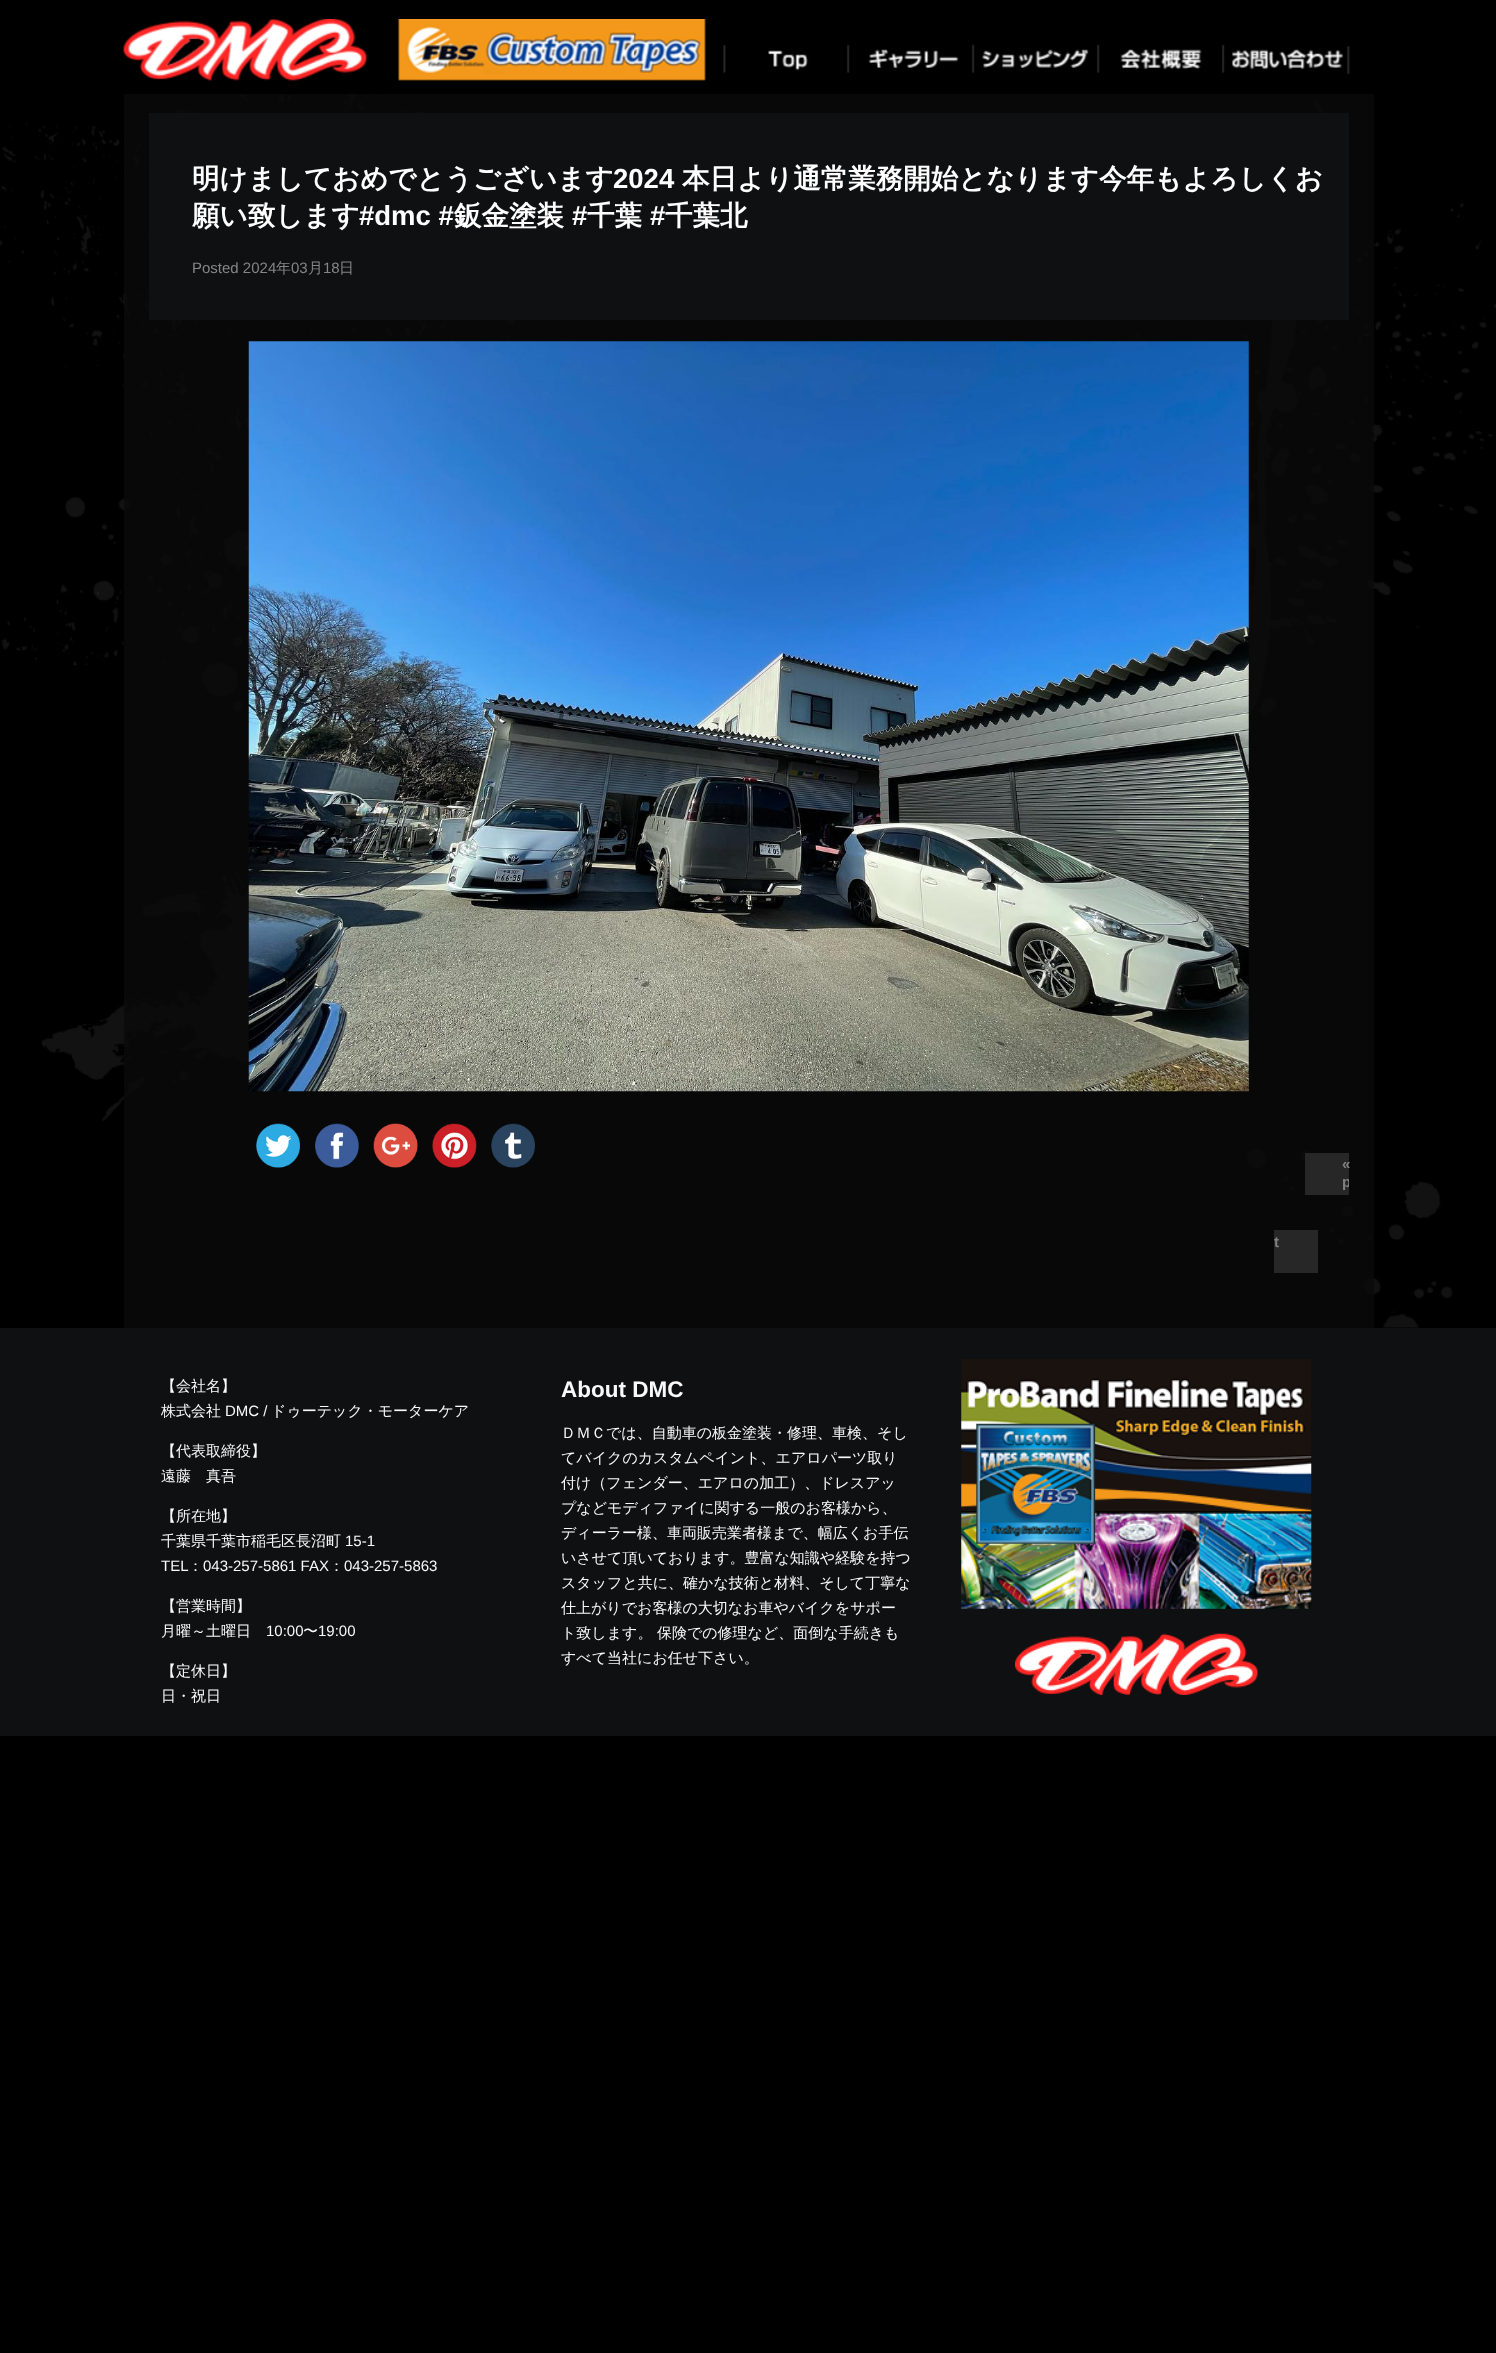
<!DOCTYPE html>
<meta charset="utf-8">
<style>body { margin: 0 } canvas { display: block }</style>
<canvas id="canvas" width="1496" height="2353"></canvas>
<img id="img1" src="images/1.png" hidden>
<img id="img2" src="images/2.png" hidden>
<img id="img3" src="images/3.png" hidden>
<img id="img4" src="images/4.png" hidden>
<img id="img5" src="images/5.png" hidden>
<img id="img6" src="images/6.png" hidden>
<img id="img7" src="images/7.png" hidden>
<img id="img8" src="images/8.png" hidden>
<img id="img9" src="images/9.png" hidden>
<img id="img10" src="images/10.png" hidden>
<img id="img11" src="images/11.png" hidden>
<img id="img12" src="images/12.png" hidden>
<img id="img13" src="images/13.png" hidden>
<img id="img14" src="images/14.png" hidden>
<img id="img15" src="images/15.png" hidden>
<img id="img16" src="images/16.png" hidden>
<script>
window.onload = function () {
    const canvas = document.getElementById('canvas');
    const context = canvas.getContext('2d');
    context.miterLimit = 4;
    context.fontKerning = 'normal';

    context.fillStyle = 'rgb(0, 0, 0)';
    context.fillRect(0, 0, 1496, 2353);
    context.drawImage(document.getElementById('img1'), 123, 19, 244, 62);
    context.drawImage(document.getElementById('img2'), 398, 19, 308, 62);
    context.drawImage(document.getElementById('img3'), 723, 44, 127, 29);
    context.drawImage(document.getElementById('img4'), 868, 44, 107, 29);
    context.drawImage(document.getElementById('img5'), 982, 44, 118, 29);
    context.drawImage(document.getElementById('img6'), 1120, 44, 105, 29);
    context.drawImage(document.getElementById('img7'), 1231, 46, 119, 28);
    context.drawImage(document.getElementById('img8'), 0, 94, 1496, 1234);
    context.fillStyle = 'rgba(10, 10, 10, 0.8)';
    context.fillRect(124, 94, 1250, 1234);
    context.fillStyle = 'rgb(15, 16, 18)';
    context.fillRect(149, 113, 1200, 207);
    context.drawImage(document.getElementById('img9'), 248, 341, 1001, 751);
    context.drawImage(document.getElementById('img10'), 256, 1123, 44, 45);
    context.drawImage(document.getElementById('img11'), 315, 1123, 44, 45);
    context.drawImage(document.getElementById('img12'), 373, 1123, 45, 45);
    context.drawImage(document.getElementById('img13'), 432, 1123, 45, 45);
    context.drawImage(document.getElementById('img14'), 491, 1123, 44, 45);
    context.fillStyle = 'rgb(39, 39, 39)';
    context.fillRect(1305, 1153, 44, 42);
    context.fillRect(1274, 1230, 44, 43);
    context.fillStyle = 'rgb(15, 16, 18)';
    context.fillRect(0, 1328, 1496, 408);
    context.drawImage(document.getElementById('img15'), 961, 1359, 351, 250);
    context.drawImage(document.getElementById('img16'), 1015, 1633, 243, 62);
    context.font = 'bold 27.5px WenQuanYi Zen Hei';
    context.fillStyle = 'rgb(255, 255, 255)';
    context.fillText('明けましておめでとうございます', 192, 188);
    context.font = 'bold 27.5px Liberation Sans';
    context.fillText('2024', 613, 188);
    context.font = 'bold 27.5px WenQuanYi Zen Hei';
    context.fillText('本日より通常業務開始となります今年もよろしくお', 682, 188);
    context.fillText('願い致します️', 192, 225);
    context.font = 'bold 27.5px Liberation Sans';
    context.fillText('#dmc #', 359, 225);
    context.font = 'bold 27.5px WenQuanYi Zen Hei';
    context.fillText('鈑金塗装', 454, 225);
    context.font = 'bold 27.5px Liberation Sans';
    context.fillText('#', 572, 225);
    context.font = 'bold 27.5px WenQuanYi Zen Hei';
    context.fillText('千葉', 587, 225);
    context.font = 'bold 27.5px Liberation Sans';
    context.fillText('#', 650, 225);
    context.font = 'bold 27.5px WenQuanYi Zen Hei';
    context.fillText('千葉北', 665, 225);
    context.font = '15px Liberation Sans';
    context.fillStyle = 'rgb(134, 134, 134)';
    context.fillText('Posted 2024', 192, 273);
    context.font = '500 15px WenQuanYi Zen Hei';
    context.fillText('年', 276, 273);
    context.font = '15px Liberation Sans';
    context.fillText('03', 291, 273);
    context.font = '500 15px WenQuanYi Zen Hei';
    context.fillText('月', 308, 273);
    context.font = '15px Liberation Sans';
    context.fillText('18', 323, 273);
    context.font = '500 15px WenQuanYi Zen Hei';
    context.fillText('日', 339, 273);
    context.font = 'bold 15px Liberation Sans';
    context.fillStyle = 'rgb(128, 128, 128)';
    context.fillText('«', 1342, 1169);
    context.save();
    context.beginPath();
    context.rect(1274, 1116, 75, 187);
    context.clip();
    context.fillText('p', 1342, 1187);
    context.restore();
    context.fillText('t', 1274, 1247);
    context.font = '500 15px WenQuanYi Zen Hei';
    context.fillStyle = 'rgb(249, 249, 249)';
    context.fillText('【会社名】', 161, 1391);
    context.fillText('株式会社', 161, 1416);
    context.font = '15px Liberation Sans';
    context.fillText('DMC /', 225, 1416);
    context.font = '500 15px WenQuanYi Zen Hei';
    context.fillText('ドゥーテック・モーターケア', 271, 1416);
    context.fillText('【代表取締役】', 161, 1456);
    context.fillText('遠藤　真吾', 161, 1481);
    context.fillText('【所在地】', 161, 1521);
    context.fillText('千葉県千葉市稲毛区長沼町', 161, 1546);
    context.font = '15px Liberation Sans';
    context.fillText('15-1', 345, 1546);
    context.fillText('TEL', 161, 1571);
    context.font = '500 15px WenQuanYi Zen Hei';
    context.fillText('：', 188, 1571);
    context.font = '15px Liberation Sans';
    context.fillText('043-257-5861 FAX', 203, 1571);
    context.font = '500 15px WenQuanYi Zen Hei';
    context.fillText('：', 329, 1571);
    context.font = '15px Liberation Sans';
    context.fillText('043-257-5863', 344, 1571);
    context.font = '500 15px WenQuanYi Zen Hei';
    context.fillText('【営業時間】', 161, 1611);
    context.fillText('月曜～土曜日', 161, 1636);
    context.font = '15px Liberation Sans';
    context.fillText('10:00', 266, 1636);
    context.font = '500 15px WenQuanYi Zen Hei';
    context.fillText('〜', 303, 1636);
    context.font = '15px Liberation Sans';
    context.fillText('19:00', 318, 1636);
    context.font = '500 15px WenQuanYi Zen Hei';
    context.fillText('【定休日】', 161, 1676);
    context.fillText('日・祝日', 161, 1701);
    context.font = 'bold 22.5px Liberation Sans';
    context.fillText('About DMC', 561, 1397);
    context.font = '500 15px WenQuanYi Zen Hei';
    context.fillText('ＤＭＣでは、自動車の板金塗装・修理、車検、そし', 561, 1438);
    context.fillText('てバイクのカスタムペイント、エアロパーツ取り', 561, 1463);
    context.fillText('付け（フェンダー、エアロの加工）、ドレスアッ', 561, 1488);
    context.fillText('プなどモディファイに関する一般のお客様から、', 561, 1513);
    context.fillText('ディーラー様、車両販売業者様まで、幅広くお手伝', 561, 1538);
    context.fillText('いさせて頂いております。豊富な知識や経験を持つ', 561, 1563);
    context.fillText('スタッフと共に、確かな技術と材料、そして丁寧な', 561, 1588);
    context.fillText('仕上がりでお客様の大切なお車やバイクをサポー', 561, 1613);
    context.fillText('ト致します。 保険での修理など、面倒な手続きも', 561, 1638);
    context.fillText('すべて当社にお任せ下さい。', 561, 1663);
};
</script>
